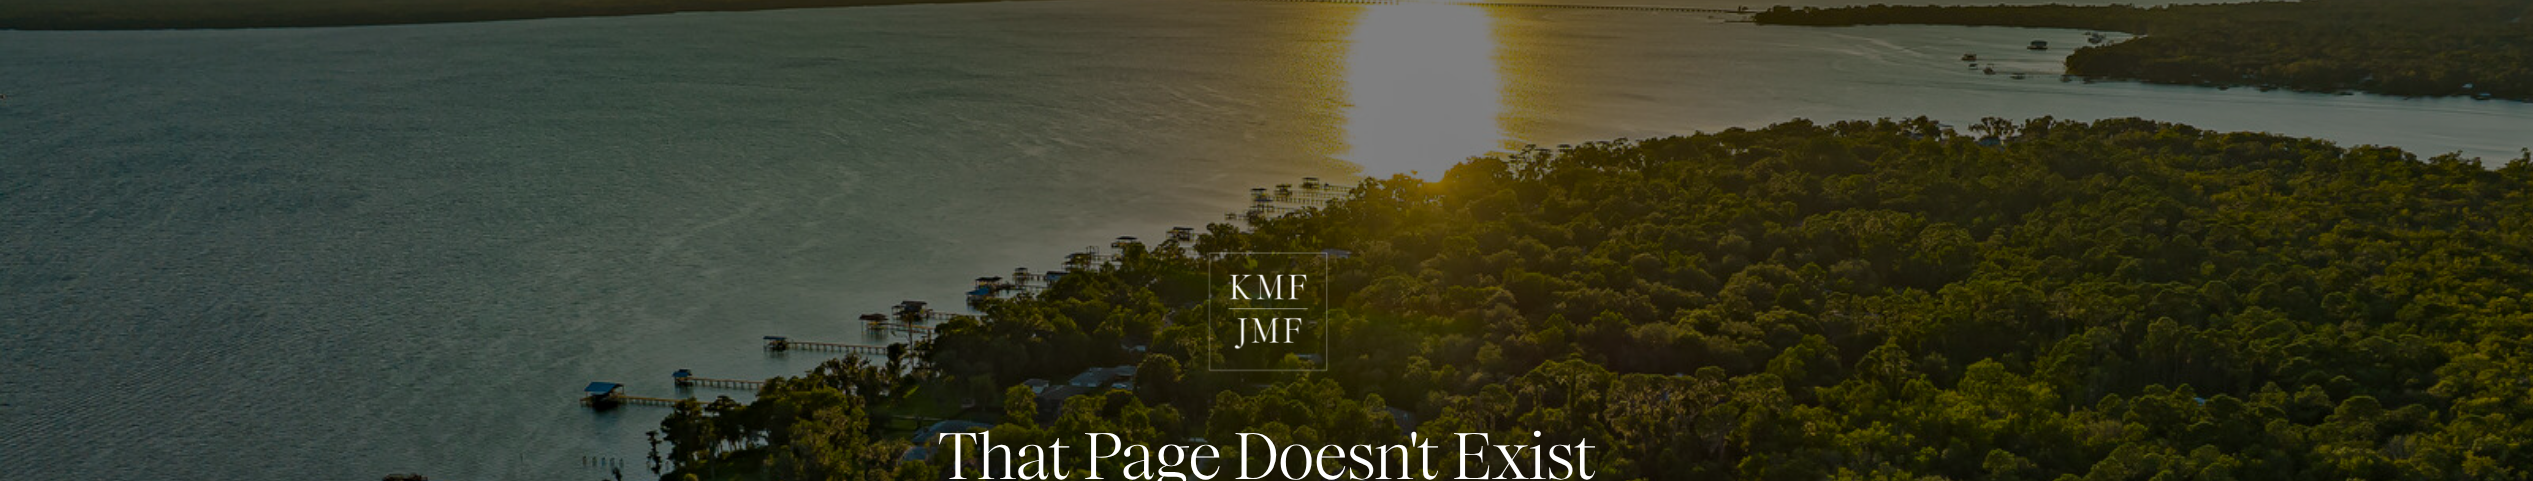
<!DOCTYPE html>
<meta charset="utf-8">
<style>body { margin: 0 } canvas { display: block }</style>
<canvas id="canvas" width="2533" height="481"></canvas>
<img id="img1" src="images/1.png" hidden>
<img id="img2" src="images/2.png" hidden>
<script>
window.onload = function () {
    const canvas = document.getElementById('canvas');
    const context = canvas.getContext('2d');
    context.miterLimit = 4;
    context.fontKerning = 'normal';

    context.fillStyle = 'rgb(0, 0, 0)';
    context.fillRect(0, 0, 2533, 481);
    context.drawImage(document.getElementById('img1'), 0, 0, 2533, 481);
    context.drawImage(document.getElementById('img2'), 1208, 252, 120, 120);
    context.font = '300 67.5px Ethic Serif';
    context.fillStyle = 'rgb(255, 255, 255)';
    context.fillText('That Page Doesn\'t Exist', 938, 479);
};
</script>
